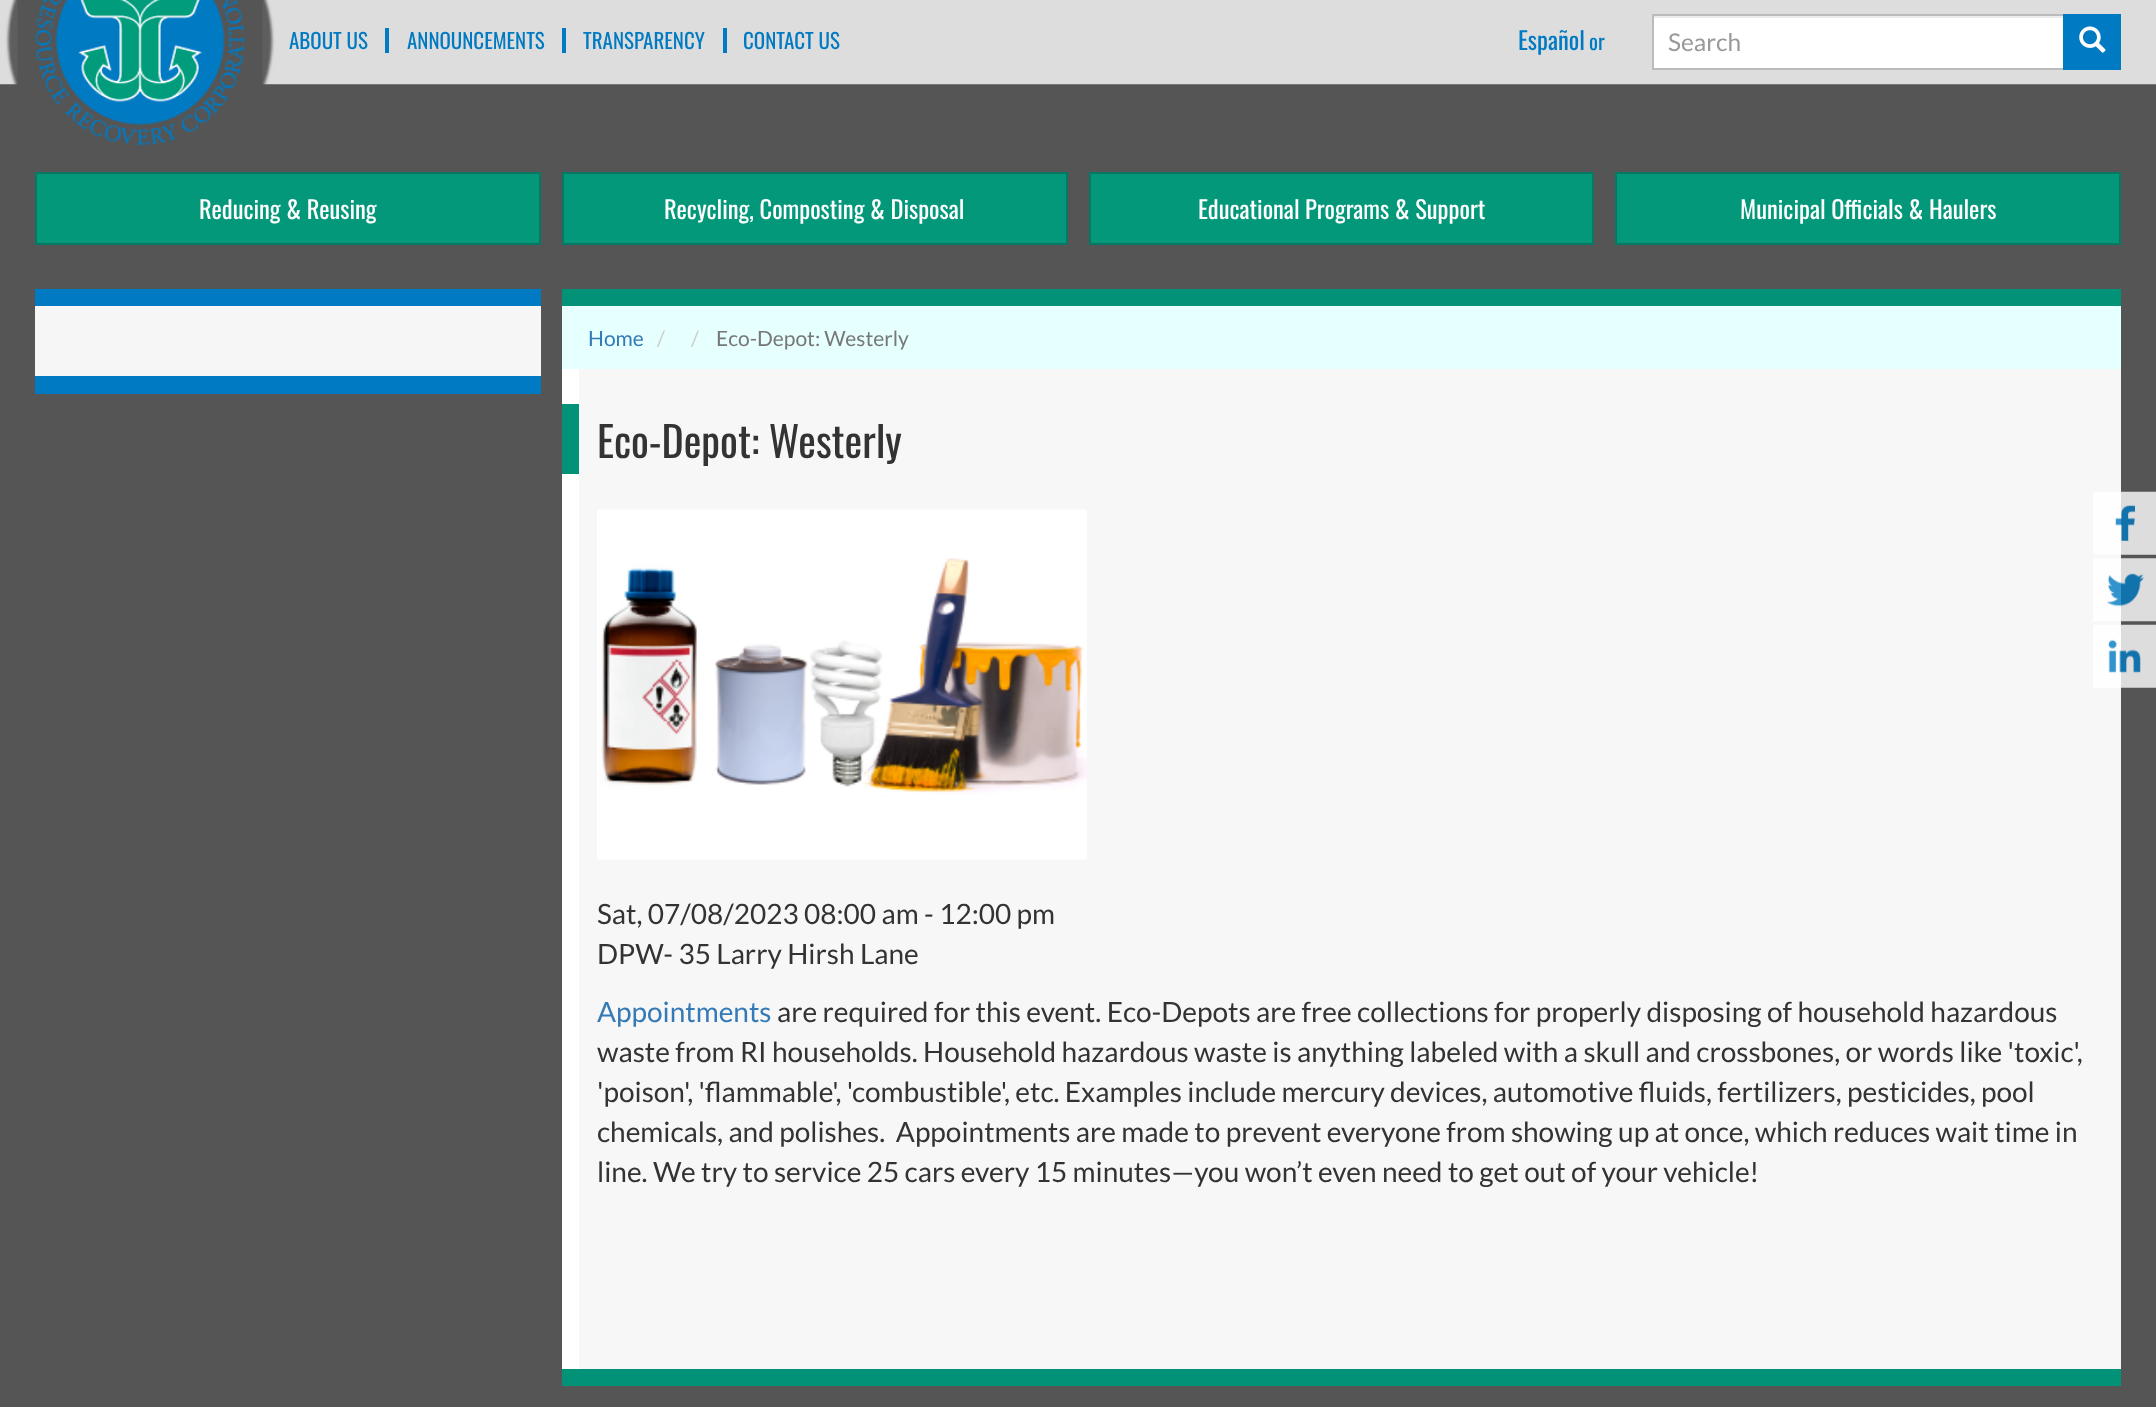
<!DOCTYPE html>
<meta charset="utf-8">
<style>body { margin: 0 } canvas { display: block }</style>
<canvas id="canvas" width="2156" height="1407"></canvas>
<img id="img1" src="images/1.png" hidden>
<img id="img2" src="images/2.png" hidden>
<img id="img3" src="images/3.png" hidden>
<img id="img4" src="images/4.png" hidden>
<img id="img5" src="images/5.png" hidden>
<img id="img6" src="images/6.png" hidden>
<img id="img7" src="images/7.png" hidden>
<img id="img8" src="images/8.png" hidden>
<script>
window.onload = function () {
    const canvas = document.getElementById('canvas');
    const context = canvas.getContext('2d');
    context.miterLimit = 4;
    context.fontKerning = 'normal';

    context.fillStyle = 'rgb(85, 85, 85)';
    context.fillRect(0, 0, 2156, 1407);
    context.drawImage(document.getElementById('img1'), 0, 0, 18, 85);
    context.drawImage(document.getElementById('img2'), 35, 0, 210, 146);
    context.drawImage(document.getElementById('img3'), 262, 0, 1894, 85);
    context.fillStyle = 'rgb(0, 122, 194)';
    context.fillRect(385, 28, 4, 25);
    context.fillRect(562, 28, 4, 25);
    context.fillRect(723, 28, 4, 25);
    context.fillStyle = 'rgb(255, 255, 255)';
    context.fillRect(1654, 18, 409, 50);
    context.fillStyle = 'rgb(236, 236, 236)';
    context.fillRect(1654, 16, 409, 2);
    context.strokeStyle = 'rgb(187, 187, 187)';
    context.lineWidth = 2;
    context.strokeRect(1653, 15, 467, 54);
    context.fillStyle = 'rgb(0, 122, 194)';
    context.fillRect(2063, 14, 58, 56);
    context.drawImage(document.getElementById('img4'), 2079, 26, 27, 27);
    context.fillStyle = 'rgb(4, 152, 123)';
    context.beginPath();
    context.rect(36, 173, 504, 71);
    context.fill();
    context.strokeStyle = 'rgb(7, 120, 99)';
    context.stroke();
    context.beginPath();
    context.rect(563, 173, 504, 71);
    context.fill();
    context.stroke();
    context.beginPath();
    context.rect(1090, 173, 503, 71);
    context.fill();
    context.stroke();
    context.beginPath();
    context.rect(1616, 173, 504, 71);
    context.fill();
    context.stroke();
    context.fillStyle = 'rgb(246, 246, 246)';
    context.fillRect(35, 306, 506, 70);
    context.fillStyle = 'rgb(0, 122, 194)';
    context.fillRect(35, 289, 506, 17);
    context.fillRect(35, 376, 506, 18);
    context.fillStyle = 'rgb(247, 247, 247)';
    context.fillRect(579, 369, 1542, 1000);
    context.fillStyle = 'rgb(255, 255, 255)';
    context.fillRect(562, 369, 17, 1000);
    context.fillStyle = 'rgb(2, 146, 119)';
    context.fillRect(562, 289, 1559, 17);
    context.fillRect(562, 1369, 1559, 17);
    context.fillStyle = 'rgb(230, 255, 255)';
    context.fillRect(562, 306, 1559, 63);
    context.fillStyle = 'rgb(2, 146, 119)';
    context.fillRect(562, 404, 17, 70);
    context.drawImage(document.getElementById('img5'), 597, 509, 490, 351);
    context.drawImage(document.getElementById('img6'), 2093, 491, 63, 64);
    context.drawImage(document.getElementById('img7'), 2093, 558, 63, 64);
    context.drawImage(document.getElementById('img8'), 2093, 624, 63, 64);
    context.font = '21px Oswald';
    context.fillStyle = 'rgb(0, 122, 194)';
    context.fillText('ABOUT US', 289, 49);
    context.fillText('ANNOUNCEMENTS', 407, 49);
    context.fillText('TRANSPARENCY', 583, 49);
    context.fillText('CONTACT US', 743, 49);
    context.font = '24.5px Oswald';
    context.fillText('Español', 1518, 50);
    context.font = '21px Oswald';
    context.fillText('or', 1589, 50);
    context.font = '24.5px Lato';
    context.fillStyle = 'rgb(153, 153, 153)';
    context.fillText('Search', 1668, 51);
    context.font = '24.5px Oswald';
    context.fillStyle = 'rgb(255, 255, 255)';
    context.fillText('Reducing & Reusing', 199, 219);
    context.fillText('Recycling, Composting & Disposal', 664, 219);
    context.fillText('Educational Programs & Support', 1198, 219);
    context.fillText('Municipal Officials & Haulers', 1740, 219);
    context.font = '21px Lato';
    context.fillStyle = 'rgb(51, 122, 183)';
    context.fillText('Home', 588, 346);
    context.fillStyle = 'rgb(204, 204, 204)';
    context.fillText('/', 657, 346);
    context.fillText('/', 691, 346);
    context.fillStyle = 'rgb(119, 119, 119)';
    context.fillText('Eco-Depot: Westerly', 716, 346);
    context.font = '42px Oswald';
    context.fillStyle = 'rgb(51, 51, 51)';
    context.fillText('Eco-Depot: Westerly', 597, 458);
    context.font = '28px Lato';
    context.fillText('Sat, 07/08/2023 08:00 am - 12:00 pm', 597, 924);
    context.fillText('DPW- 35 Larry Hirsh Lane', 597, 964);
    context.fillStyle = 'rgb(51, 122, 183)';
    context.fillText('Appointments', 597, 1022);
    context.fillStyle = 'rgb(51, 51, 51)';
    context.fillText('are required for this event. Eco-Depots are free collections for properly disposing of household hazardous', 777, 1022);
    context.fillText('waste from RI households. Household hazardous waste is anything labeled with a skull and crossbones, or words like \'toxic\',', 597, 1062);
    context.fillText('\'poison\', \'flammable\', \'combustible\', etc. Examples include mercury devices, automotive fluids, fertilizers, pesticides, pool', 597, 1102);
    context.fillText('chemicals, and polishes.  Appointments are made to prevent everyone from showing up at once, which reduces wait time in', 597, 1142);
    context.fillText('line. We try to service 25 cars every 15 minutes—you won’t even need to get out of your vehicle!', 597, 1182);
};
</script>
